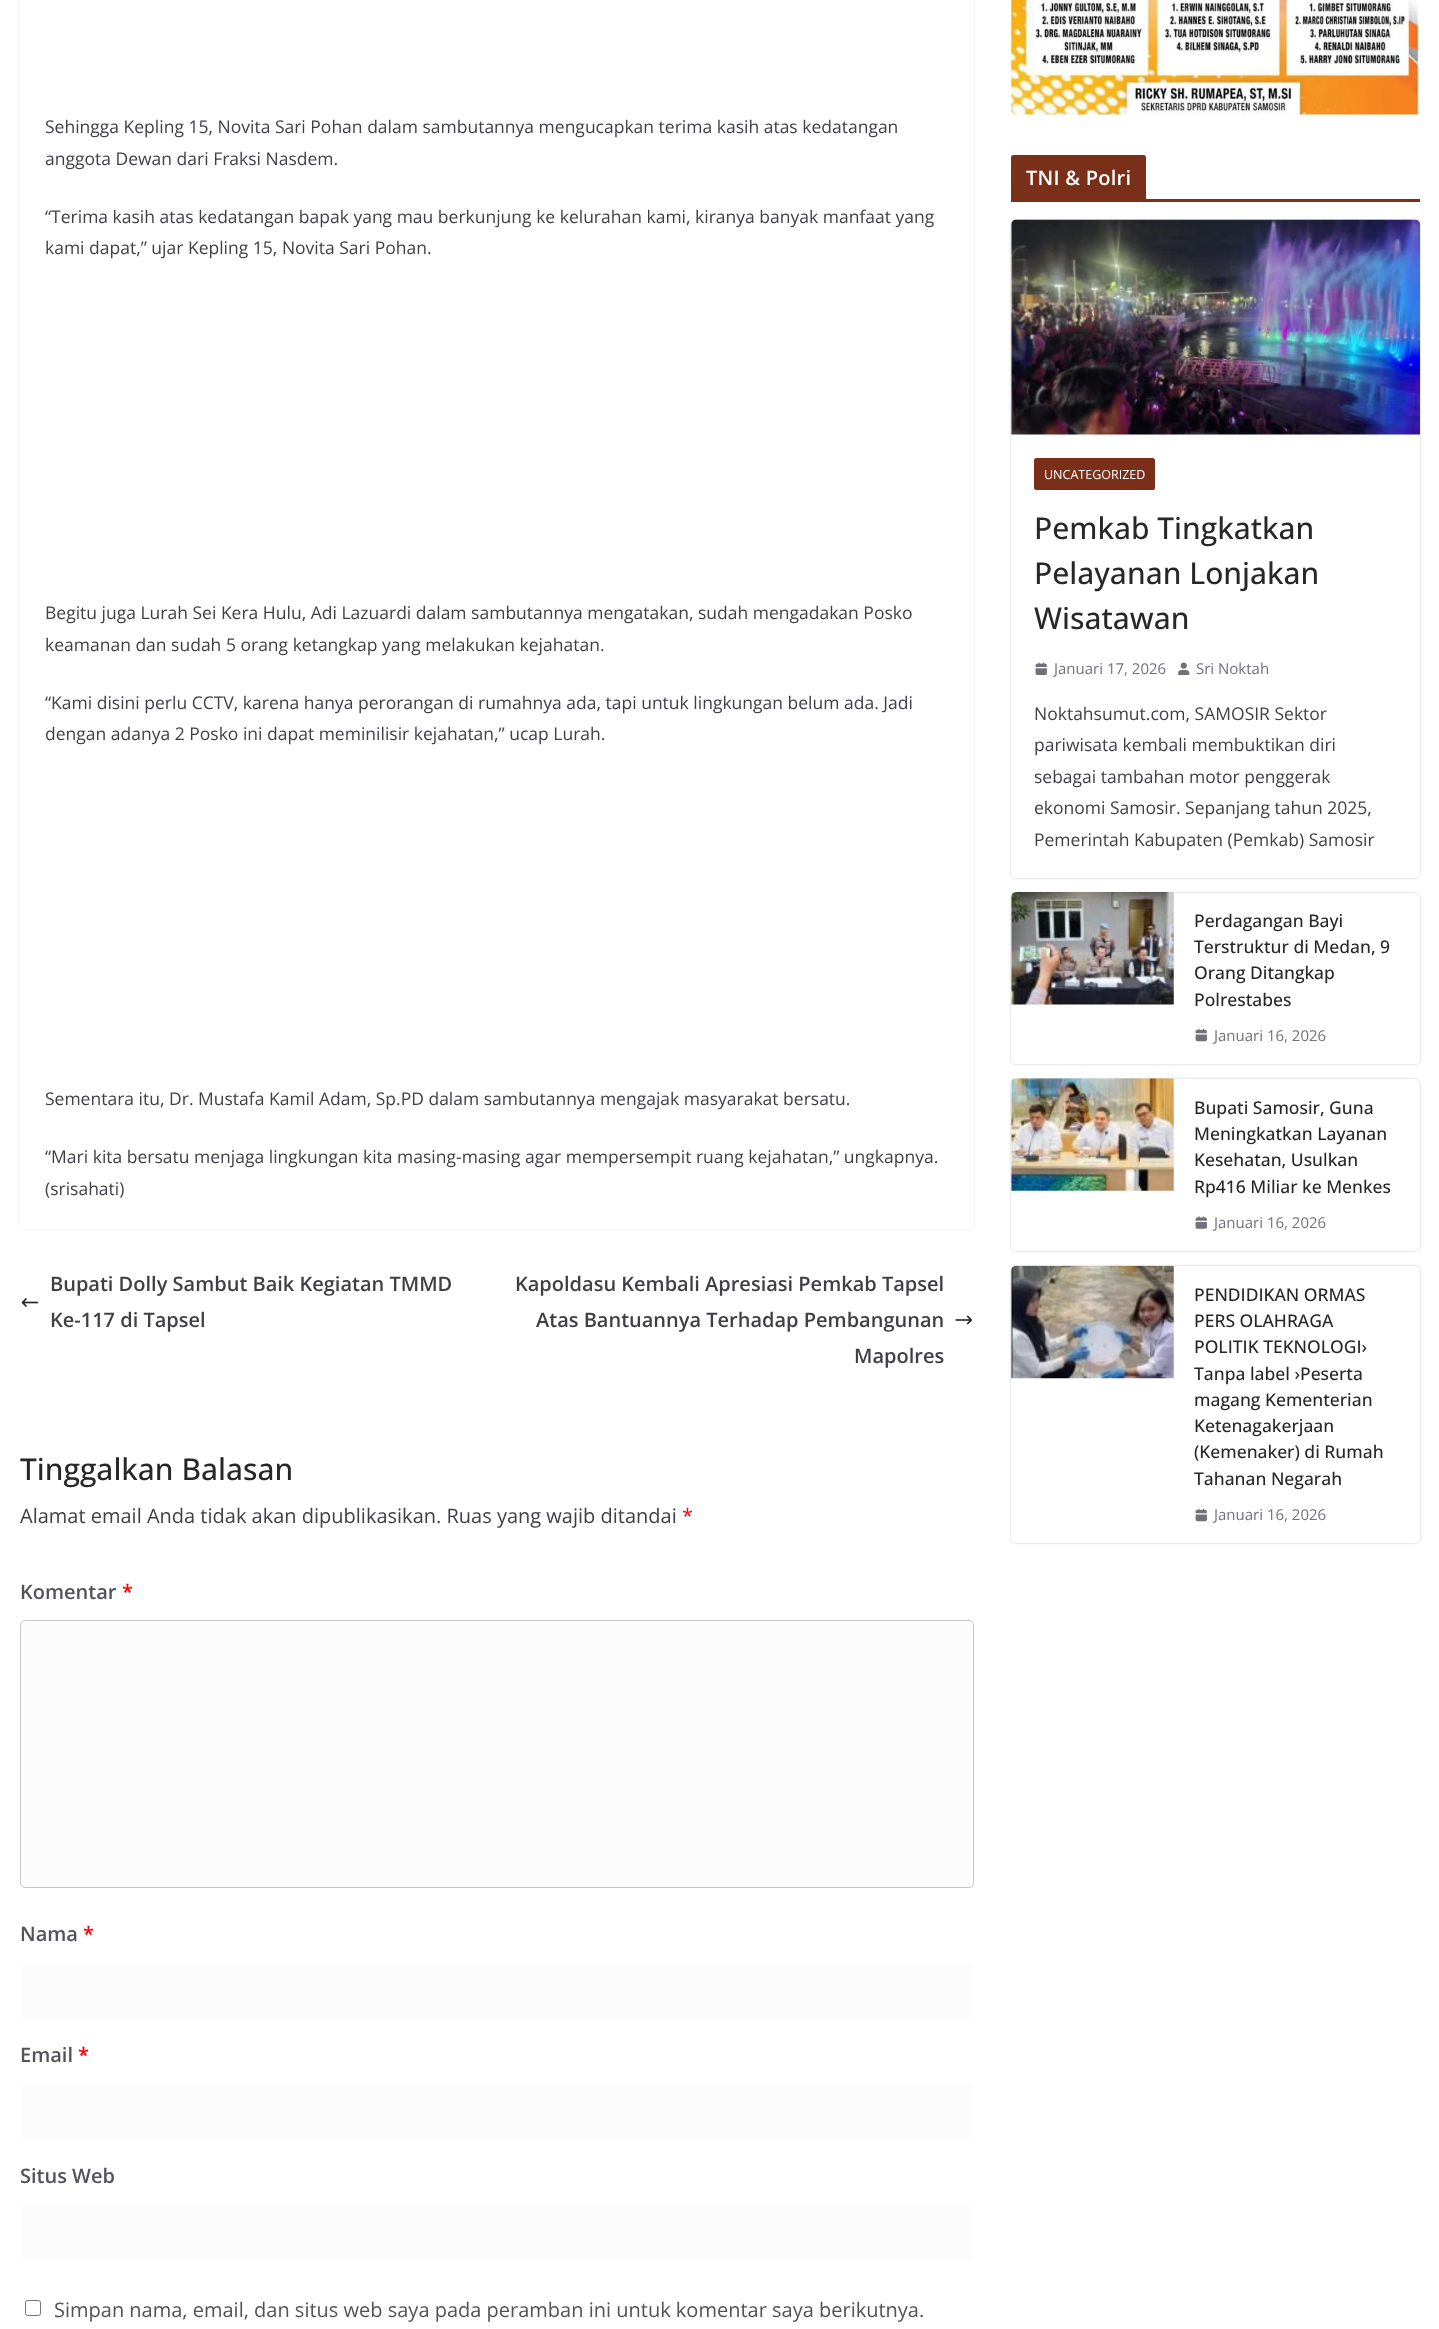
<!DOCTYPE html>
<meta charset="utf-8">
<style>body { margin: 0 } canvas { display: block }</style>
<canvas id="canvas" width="1439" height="2329"></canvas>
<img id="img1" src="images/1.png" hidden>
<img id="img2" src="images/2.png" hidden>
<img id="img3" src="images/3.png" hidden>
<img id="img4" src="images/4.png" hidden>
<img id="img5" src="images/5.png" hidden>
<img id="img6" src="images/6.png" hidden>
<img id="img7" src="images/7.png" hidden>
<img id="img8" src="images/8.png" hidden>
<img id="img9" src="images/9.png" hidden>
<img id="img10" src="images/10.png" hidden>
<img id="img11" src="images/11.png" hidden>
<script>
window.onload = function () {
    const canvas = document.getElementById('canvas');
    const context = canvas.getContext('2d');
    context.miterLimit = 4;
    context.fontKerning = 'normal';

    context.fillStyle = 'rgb(255, 255, 255)';
    context.fillRect(0, 0, 1439, 2329);
    context.save();
    context.beginPath();
    context.moveTo(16, 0);
    context.lineTo(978, 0);
    context.lineTo(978, 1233);
    context.lineTo(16, 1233);
    context.closePath();
    context.moveTo(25, -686);
    context.lineTo(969, -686);
    context.bezierCurveTo(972, -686, 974, -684, 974, -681);
    context.lineTo(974, 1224);
    context.bezierCurveTo(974, 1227, 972, 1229, 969, 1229);
    context.lineTo(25, 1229);
    context.bezierCurveTo(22, 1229, 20, 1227, 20, 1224);
    context.lineTo(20, -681);
    context.bezierCurveTo(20, -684, 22, -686, 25, -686);
    context.closePath();
    context.clip('evenodd');
    context.fillStyle = 'rgb(228, 228, 231)';
    context.filter = 'blur(1px)';
    context.beginPath();
    context.roundRect(20, -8, 954, 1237, 5);
    context.fill();
    context.filter = 'none';
    context.restore();
    context.drawImage(document.getElementById('img1'), 21, 1298, 18, 9);
    context.drawImage(document.getElementById('img2'), 955, 1315, 17, 10);
    context.fillStyle = 'rgb(252, 252, 252)';
    context.beginPath();
    context.roundRect(20.5, 1620.5, 953, 267, 4.5);
    context.fill();
    context.strokeStyle = 'rgb(199, 199, 199)';
    context.stroke();
    context.beginPath();
    context.roundRect(20.5, 1963.5, 953, 56, 4.5);
    context.fill();
    context.strokeStyle = 'rgb(255, 255, 255)';
    context.stroke();
    context.beginPath();
    context.roundRect(20.5, 2083.5, 953, 56, 4.5);
    context.fill();
    context.stroke();
    context.beginPath();
    context.roundRect(20.5, 2204.5, 953, 56, 4.5);
    context.fill();
    context.stroke();
    context.beginPath();
    context.roundRect(25.5, 2300.5, 15, 15, 2);
    context.strokeStyle = 'rgb(118, 118, 118)';
    context.stroke();
    context.drawImage(document.getElementById('img3'), 1011, 0, 409, 115);
    context.fillStyle = 'rgb(122, 47, 24)';
    context.fillRect(1011, 199, 409, 3);
    context.beginPath();
    context.roundRect(1011, 155, 135, 44, [2.5, 2.5, 0, 0]);
    context.fill();
    context.save();
    context.beginPath();
    context.moveTo(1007, 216);
    context.lineTo(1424, 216);
    context.lineTo(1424, 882);
    context.lineTo(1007, 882);
    context.closePath();
    context.moveTo(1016, 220);
    context.lineTo(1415, 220);
    context.bezierCurveTo(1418, 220, 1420, 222, 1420, 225);
    context.lineTo(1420, 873);
    context.bezierCurveTo(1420, 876, 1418, 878, 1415, 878);
    context.lineTo(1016, 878);
    context.bezierCurveTo(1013, 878, 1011, 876, 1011, 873);
    context.lineTo(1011, 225);
    context.bezierCurveTo(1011, 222, 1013, 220, 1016, 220);
    context.closePath();
    context.clip('evenodd');
    context.fillStyle = 'rgba(0, 0, 0, 0.24)';
    context.filter = 'blur(1px)';
    context.beginPath();
    context.roundRect(1011, 220, 409, 658, 5);
    context.fill();
    context.filter = 'none';
    context.restore();
    context.drawImage(document.getElementById('img4'), 1011, 219, 409, 216);
    context.beginPath();
    context.roundRect(1034, 458, 121, 32, 2.5);
    context.fill();
    context.drawImage(document.getElementById('img5'), 1035, 662, 12, 13);
    context.drawImage(document.getElementById('img6'), 1178, 662, 12, 13);
    context.save();
    context.beginPath();
    context.moveTo(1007, 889);
    context.lineTo(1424, 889);
    context.lineTo(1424, 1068);
    context.lineTo(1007, 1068);
    context.closePath();
    context.moveTo(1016, 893);
    context.lineTo(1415, 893);
    context.bezierCurveTo(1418, 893, 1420, 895, 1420, 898);
    context.lineTo(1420, 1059);
    context.bezierCurveTo(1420, 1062, 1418, 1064, 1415, 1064);
    context.lineTo(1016, 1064);
    context.bezierCurveTo(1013, 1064, 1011, 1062, 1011, 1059);
    context.lineTo(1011, 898);
    context.bezierCurveTo(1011, 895, 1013, 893, 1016, 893);
    context.closePath();
    context.clip('evenodd');
    context.fillStyle = 'rgba(0, 0, 0, 0.24)';
    context.filter = 'blur(1px)';
    context.beginPath();
    context.roundRect(1011, 893, 409, 171, 5);
    context.fill();
    context.filter = 'none';
    context.restore();
    context.drawImage(document.getElementById('img7'), 1011, 892, 163, 113);
    context.drawImage(document.getElementById('img8'), 1195, 1028, 12, 14);
    context.save();
    context.beginPath();
    context.moveTo(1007, 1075);
    context.lineTo(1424, 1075);
    context.lineTo(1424, 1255);
    context.lineTo(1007, 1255);
    context.closePath();
    context.moveTo(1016, 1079);
    context.lineTo(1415, 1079);
    context.bezierCurveTo(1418, 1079, 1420, 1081, 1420, 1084);
    context.lineTo(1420, 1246);
    context.bezierCurveTo(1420, 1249, 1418, 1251, 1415, 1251);
    context.lineTo(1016, 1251);
    context.bezierCurveTo(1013, 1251, 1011, 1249, 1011, 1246);
    context.lineTo(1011, 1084);
    context.bezierCurveTo(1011, 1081, 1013, 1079, 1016, 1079);
    context.closePath();
    context.clip('evenodd');
    context.fillStyle = 'rgba(0, 0, 0, 0.24)';
    context.filter = 'blur(1px)';
    context.beginPath();
    context.roundRect(1011, 1079, 409, 172, 5);
    context.fill();
    context.filter = 'none';
    context.restore();
    context.drawImage(document.getElementById('img9'), 1011, 1078, 163, 113);
    context.drawImage(document.getElementById('img10'), 1195, 1216, 12, 13);
    context.save();
    context.beginPath();
    context.moveTo(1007, 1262);
    context.lineTo(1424, 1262);
    context.lineTo(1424, 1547);
    context.lineTo(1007, 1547);
    context.closePath();
    context.moveTo(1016, 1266);
    context.lineTo(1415, 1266);
    context.bezierCurveTo(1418, 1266, 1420, 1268, 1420, 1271);
    context.lineTo(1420, 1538);
    context.bezierCurveTo(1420, 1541, 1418, 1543, 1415, 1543);
    context.lineTo(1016, 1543);
    context.bezierCurveTo(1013, 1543, 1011, 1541, 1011, 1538);
    context.lineTo(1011, 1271);
    context.bezierCurveTo(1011, 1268, 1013, 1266, 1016, 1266);
    context.closePath();
    context.clip('evenodd');
    context.fillStyle = 'rgba(0, 0, 0, 0.24)';
    context.filter = 'blur(1px)';
    context.beginPath();
    context.roundRect(1011, 1266, 409, 277, 5);
    context.fill();
    context.filter = 'none';
    context.restore();
    context.drawImage(document.getElementById('img11'), 1011, 1265, 163, 114);
    context.drawImage(document.getElementById('img8'), 1195, 1508, 12, 14);
    context.font = '17.5px Open Sans';
    context.fillStyle = 'rgb(63, 63, 70)';
    context.fillText('Sehingga Kepling 15, Novita Sari Pohan dalam sambutannya mengucapkan terima kasih atas kedatangan', 45, 133);
    context.fillText('anggota Dewan dari Fraksi Nasdem.', 45, 165);
    context.fillText('“Terima kasih atas kedatangan bapak yang mau berkunjung ke kelurahan kami, kiranya banyak manfaat yang', 45, 223);
    context.fillText('kami dapat,” ujar Kepling 15, Novita Sari Pohan.', 45, 254);
    context.fillText('Begitu juga Lurah Sei Kera Hulu, Adi Lazuardi dalam sambutannya mengatakan, sudah mengadakan Posko', 45, 619);
    context.fillText('keamanan dan sudah 5 orang ketangkap yang melakukan kejahatan.', 45, 651);
    context.fillText('“Kami disini perlu CCTV, karena hanya perorangan di rumahnya ada, tapi untuk lingkungan belum ada. Jadi', 45, 709);
    context.fillText('dengan adanya 2 Posko ini dapat meminilisir kejahatan,” ucap Lurah.', 45, 740);
    context.fillText('Sementara itu, Dr. Mustafa Kamil Adam, Sp.PD dalam sambutannya mengajak masyarakat bersatu.', 45, 1105);
    context.fillText('“Mari kita bersatu menjaga lingkungan kita masing-masing agar mempersempit ruang kejahatan,” ungkapnya.', 45, 1163);
    context.fillText('(srisahati)', 45, 1195);
    context.font = '600 20px Open Sans';
    context.fillText('Bupati Dolly Sambut Baik Kegiatan TMMD', 50, 1291);
    context.fillText('Ke-117 di Tapsel', 50, 1327);
    context.fillText('Kapoldasu Kembali Apresiasi Pemkab Tapsel', 515, 1291);
    context.fillText('Atas Bantuannya Terhadap Pembangunan', 536, 1327);
    context.fillText('Mapolres', 854, 1363);
    context.font = '500 30px Open Sans';
    context.fillStyle = 'rgb(39, 39, 42)';
    context.fillText('Tinggalkan Balasan', 20, 1480);
    context.font = '20px Open Sans';
    context.fillStyle = 'rgb(63, 63, 70)';
    context.fillText('Alamat email Anda tidak akan dipublikasikan. Ruas yang wajib ditandai', 20, 1523);
    context.fillStyle = 'rgb(255, 0, 0)';
    context.fillText('*', 682, 1523);
    context.font = '600 20px Open Sans';
    context.fillStyle = 'rgb(82, 82, 91)';
    context.fillText('Komentar', 20, 1599);
    context.fillStyle = 'rgb(255, 0, 0)';
    context.fillText('*', 122, 1599);
    context.fillStyle = 'rgb(82, 82, 91)';
    context.fillText('Nama', 20, 1941);
    context.fillStyle = 'rgb(255, 0, 0)';
    context.fillText('*', 83, 1941);
    context.fillStyle = 'rgb(82, 82, 91)';
    context.fillText('Email', 20, 2062);
    context.fillStyle = 'rgb(255, 0, 0)';
    context.fillText('*', 78, 2062);
    context.fillStyle = 'rgb(82, 82, 91)';
    context.fillText('Situs Web', 20, 2183);
    context.font = '20px Open Sans';
    context.fillText('Simpan nama, email, dan situs web saya pada peramban ini untuk komentar saya berikutnya.', 54, 2317);
    context.letterSpacing = '0.25px';
    context.font = '600 20px Open Sans';
    context.fillStyle = 'rgb(255, 255, 255)';
    context.fillText('TNI & Polri', 1026, 185);
    context.letterSpacing = '0px';
    context.font = '12.5px Open Sans';
    context.fillText('UNCATEGORIZED', 1044, 479);
    context.font = '500 30px Open Sans';
    context.fillStyle = 'rgb(39, 39, 42)';
    context.fillText('Pemkab Tingkatkan', 1034, 539);
    context.fillText('Pelayanan Lonjakan', 1034, 584);
    context.fillText('Wisatawan', 1034, 629);
    context.font = '15px Open Sans';
    context.fillStyle = 'rgb(113, 113, 122)';
    context.fillText('Januari 17, 2026', 1054, 674);
    context.fillText('Sri Noktah', 1196, 674);
    context.font = '17.5px Open Sans';
    context.fillStyle = 'rgb(63, 63, 70)';
    context.fillText('Noktahsumut.com, SAMOSIR Sektor', 1034, 720);
    context.fillText('pariwisata kembali membuktikan diri', 1034, 751);
    context.fillText('sebagai tambahan motor penggerak', 1034, 783);
    context.fillText('ekonomi Samosir. Sepanjang tahun 2025,', 1034, 814);
    context.fillText('Pemerintah Kabupaten (Pemkab) Samosir', 1034, 846);
    context.font = '500 17.5px Open Sans';
    context.fillStyle = 'rgb(39, 39, 42)';
    context.fillText('Perdagangan Bayi', 1194, 927);
    context.fillText('Terstruktur di Medan, 9', 1194, 953);
    context.fillText('Orang Ditangkap', 1194, 979);
    context.fillText('Polrestabes', 1194, 1006);
    context.font = '15px Open Sans';
    context.fillStyle = 'rgb(113, 113, 122)';
    context.fillText('Januari 16, 2026', 1214, 1041);
    context.font = '500 17.5px Open Sans';
    context.fillStyle = 'rgb(39, 39, 42)';
    context.fillText('Bupati Samosir, Guna', 1194, 1114);
    context.fillText('Meningkatkan Layanan', 1194, 1140);
    context.fillText('Kesehatan, Usulkan', 1194, 1166);
    context.fillText('Rp416 Miliar ke Menkes', 1194, 1193);
    context.font = '15px Open Sans';
    context.fillStyle = 'rgb(113, 113, 122)';
    context.fillText('Januari 16, 2026', 1214, 1228);
    context.font = '500 17.5px Open Sans';
    context.fillStyle = 'rgb(39, 39, 42)';
    context.fillText('PENDIDIKAN ORMAS', 1194, 1301);
    context.fillText('PERS OLAHRAGA', 1194, 1327);
    context.fillText('POLITIK TEKNOLOGI›', 1194, 1353);
    context.fillText('Tanpa label ›Peserta', 1194, 1380);
    context.fillText('magang Kementerian', 1194, 1406);
    context.fillText('Ketenagakerjaan', 1194, 1432);
    context.fillText('(Kemenaker) di Rumah', 1194, 1458);
    context.fillText('Tahanan Negarah', 1194, 1485);
    context.font = '15px Open Sans';
    context.fillStyle = 'rgb(113, 113, 122)';
    context.fillText('Januari 16, 2026', 1214, 1520);
};
</script>
